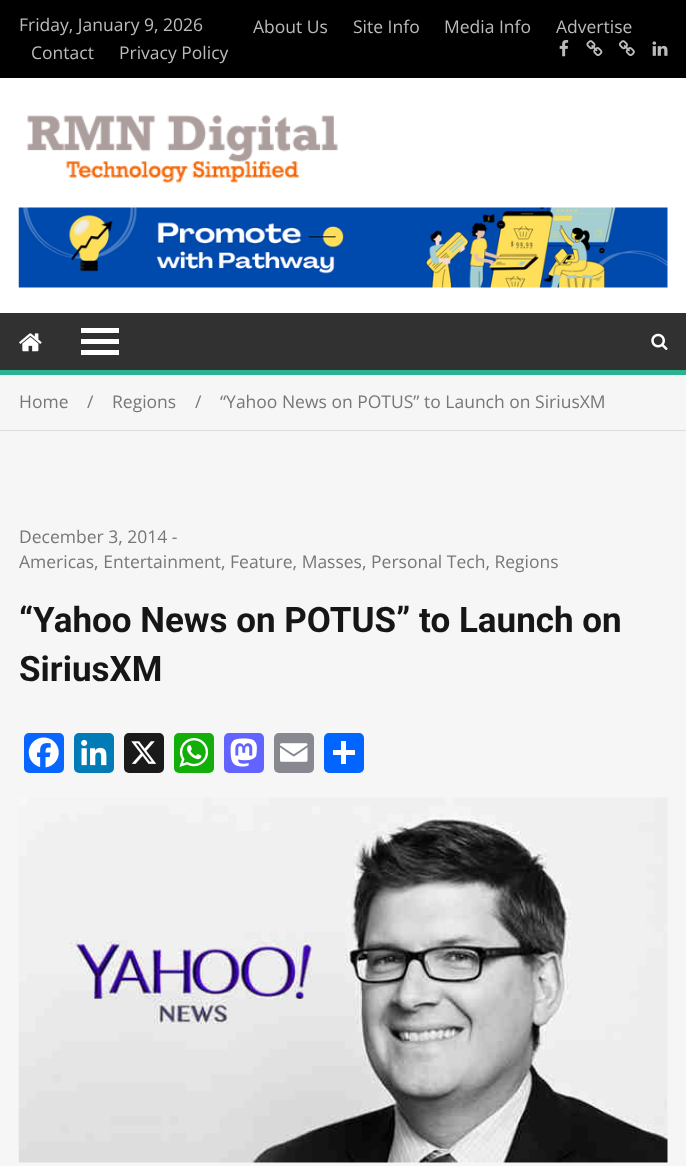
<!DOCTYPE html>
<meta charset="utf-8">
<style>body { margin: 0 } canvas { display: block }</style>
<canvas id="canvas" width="686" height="1166"></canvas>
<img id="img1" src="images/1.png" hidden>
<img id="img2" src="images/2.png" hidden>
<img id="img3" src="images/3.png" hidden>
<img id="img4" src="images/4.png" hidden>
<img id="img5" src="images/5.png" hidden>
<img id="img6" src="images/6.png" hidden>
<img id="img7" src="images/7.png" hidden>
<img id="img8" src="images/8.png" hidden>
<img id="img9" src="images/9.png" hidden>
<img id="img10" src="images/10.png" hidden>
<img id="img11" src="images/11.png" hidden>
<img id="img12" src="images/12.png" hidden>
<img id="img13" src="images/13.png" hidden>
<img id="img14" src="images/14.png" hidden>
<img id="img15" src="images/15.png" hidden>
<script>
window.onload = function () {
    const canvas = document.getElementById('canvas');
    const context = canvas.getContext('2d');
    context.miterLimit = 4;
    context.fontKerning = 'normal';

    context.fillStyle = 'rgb(246, 246, 246)';
    context.fillRect(0, 0, 686, 1166);
    context.fillStyle = 'rgb(255, 255, 255)';
    context.fillRect(0, 78, 686, 235);
    context.fillStyle = 'rgb(0, 0, 0)';
    context.fillRect(0, 0, 686, 78);
    context.drawImage(document.getElementById('img1'), 559, 40, 10, 17);
    context.drawImage(document.getElementById('img2'), 586, 40, 17, 17);
    context.drawImage(document.getElementById('img3'), 618, 40, 17, 17);
    context.drawImage(document.getElementById('img4'), 652, 41, 16, 15);
    context.drawImage(document.getElementById('img5'), 27, 115, 311, 68);
    context.drawImage(document.getElementById('img6'), 18, 207, 650, 81);
    context.fillStyle = 'rgb(49, 49, 49)';
    context.fillRect(0, 313, 686, 57);
    context.fillStyle = 'rgb(42, 179, 145)';
    context.fillRect(0, 370, 686, 5);
    context.drawImage(document.getElementById('img7'), 19, 333, 23, 19);
    context.fillStyle = 'rgb(255, 255, 255)';
    context.fillRect(81, 328, 38, 5);
    context.fillRect(81, 339, 38, 5);
    context.fillRect(81, 350, 38, 5);
    context.drawImage(document.getElementById('img8'), 651, 333, 17, 17);
    context.fillStyle = 'rgb(221, 221, 221)';
    context.fillRect(0, 430, 686, 1);
    context.fillStyle = 'rgb(8, 102, 255)';
    context.beginPath();
    context.roundRect(24, 733, 40, 40, 5);
    context.fill();
    context.drawImage(document.getElementById('img9'), 28, 737, 31, 31);
    context.fillStyle = 'rgb(0, 123, 181)';
    context.beginPath();
    context.roundRect(74, 733, 40, 40, 5);
    context.fill();
    context.drawImage(document.getElementById('img10'), 81, 739, 26, 27);
    context.fillStyle = 'rgb(26, 26, 26)';
    context.beginPath();
    context.roundRect(124, 733, 40, 40, 5);
    context.fill();
    context.drawImage(document.getElementById('img11'), 131, 741, 26, 23);
    context.fillStyle = 'rgb(18, 175, 10)';
    context.beginPath();
    context.roundRect(174, 733, 40, 40, 5);
    context.fill();
    context.drawImage(document.getElementById('img12'), 179, 738, 30, 29);
    context.fillStyle = 'rgb(99, 100, 255)';
    context.beginPath();
    context.roundRect(224, 733, 40, 40, 5);
    context.fill();
    context.drawImage(document.getElementById('img13'), 230, 738, 27, 29);
    context.fillStyle = 'rgb(136, 137, 144)';
    context.beginPath();
    context.roundRect(274, 733, 40, 40, 5);
    context.fill();
    context.drawImage(document.getElementById('img14'), 280, 743, 28, 19);
    context.fillStyle = 'rgb(1, 102, 255)';
    context.beginPath();
    context.roundRect(324, 733, 40, 40, 5);
    context.fill();
    context.fillStyle = 'rgb(255, 255, 255)';
    context.fillRect(341, 741, 5, 23);
    context.fillRect(333, 750, 22, 5);
    context.drawImage(document.getElementById('img15'), 18, 797, 650, 366);
    context.font = '17.5px Open Sans';
    context.fillStyle = 'rgb(187, 187, 187)';
    context.fillText('Friday, January 9, 2026', 19, 31);
    context.fillText('About Us', 253, 33);
    context.fillText('Site Info', 353, 33);
    context.fillText('Media Info', 444, 33);
    context.fillText('Advertise', 556, 33);
    context.fillText('Contact', 31, 59);
    context.fillText('Privacy Policy', 119, 59);
    context.fillStyle = 'rgb(119, 119, 119)';
    context.fillText('Home', 19, 408);
    context.fillText('/', 87, 408);
    context.fillText('Regions', 112, 408);
    context.fillText('/', 195, 408);
    context.fillText('“Yahoo News on POTUS” to Launch on SiriusXM', 220, 408);
    context.fillText('December 3, 2014 -', 19, 543);
    context.fillText('Americas, Entertainment, Feature, Masses, Personal Tech, Regions', 19, 568);
    context.font = 'bold 35px Roboto';
    context.fillStyle = 'rgb(22, 22, 22)';
    context.fillText('“Yahoo News on POTUS” to Launch on', 19, 632);
    context.fillText('SiriusXM', 19, 681);
};
</script>
